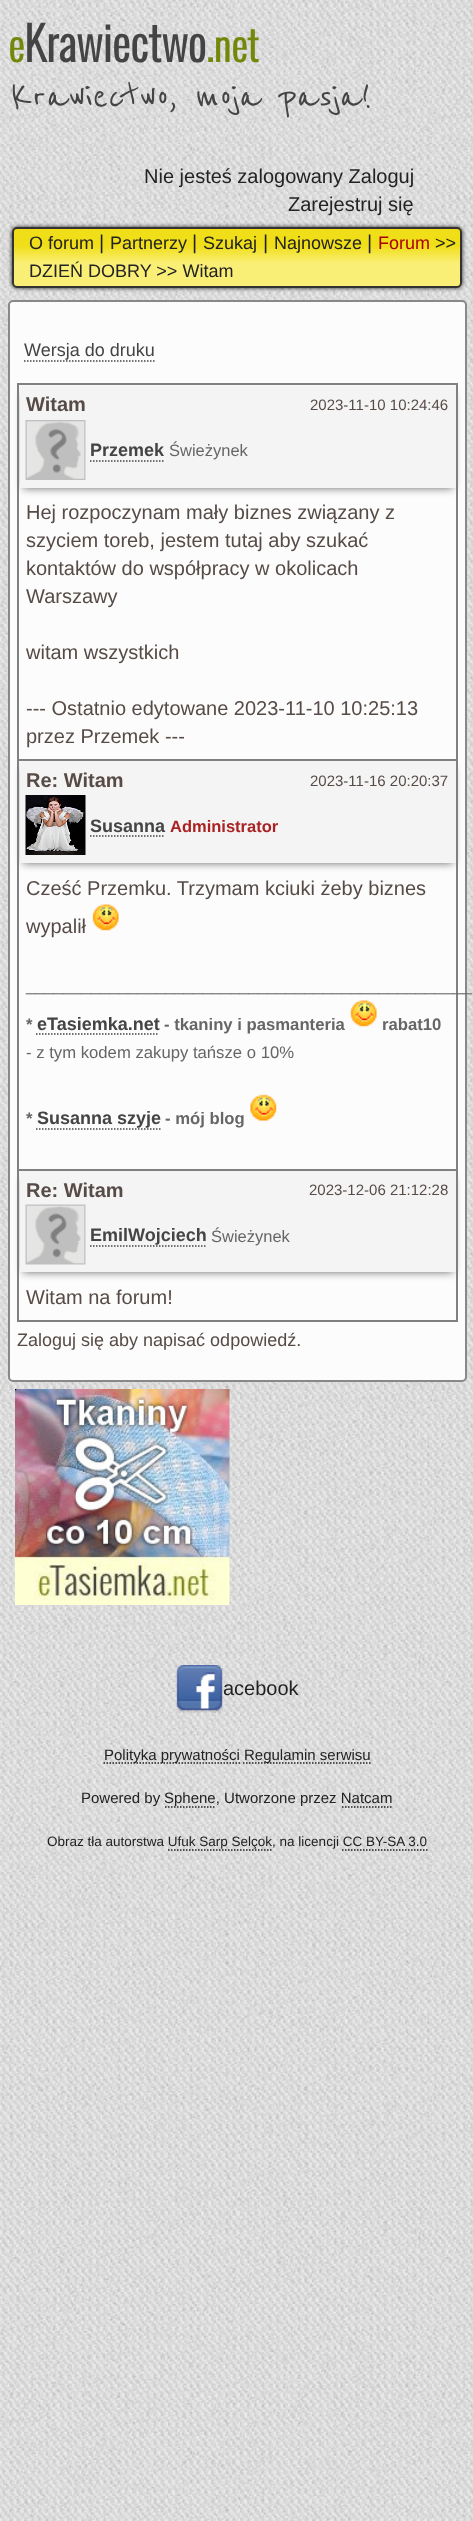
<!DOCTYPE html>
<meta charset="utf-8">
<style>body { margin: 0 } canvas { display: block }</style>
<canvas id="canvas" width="473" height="2521"></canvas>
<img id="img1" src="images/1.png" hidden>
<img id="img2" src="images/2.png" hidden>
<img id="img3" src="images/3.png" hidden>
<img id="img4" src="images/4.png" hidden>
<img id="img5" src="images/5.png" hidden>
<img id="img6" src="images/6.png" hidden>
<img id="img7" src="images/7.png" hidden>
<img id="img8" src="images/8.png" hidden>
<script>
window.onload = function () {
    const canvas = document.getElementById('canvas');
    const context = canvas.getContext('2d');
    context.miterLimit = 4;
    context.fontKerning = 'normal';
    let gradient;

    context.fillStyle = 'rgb(255, 255, 255)';
    context.fillRect(0, 0, 473, 2521);
    context.drawImage(document.getElementById('img1'), 0, 0, 473, 2521);
    context.fillStyle = 'rgb(34, 34, 34)';
    context.filter = 'blur(2px)';
    context.beginPath();
    context.roundRect(12, 227, 450, 61, 5);
    context.fill();
    context.filter = 'none';
    context.save();
    context.beginPath();
    context.roundRect(12, 227, 450, 61, 5);
    context.clip();
    gradient = context.createLinearGradient(14, 287, 14, 228);
    gradient.addColorStop(0.4, 'rgb(250, 239, 118)');
    gradient.addColorStop(0.7, 'rgb(240, 222, 24)');
    context.fillStyle = gradient;
    context.fillRect(12, 228, 450, 59);
    context.restore();
    context.beginPath();
    context.roundRect(13, 228, 448, 59, 4);
    context.strokeStyle = 'rgb(51, 51, 51)';
    context.lineWidth = 2;
    context.stroke();
    context.fillStyle = 'rgb(252, 252, 252)';
    context.beginPath();
    context.roundRect(9, 301, 457, 1080, 4);
    context.fill();
    context.strokeStyle = 'rgb(136, 136, 136)';
    context.stroke();
    context.beginPath();
    context.moveTo(24, 361);
    context.lineTo(154.5, 361);
    context.strokeStyle = 'rgb(68, 68, 68)';
    context.lineWidth = 1.5;
    context.setLineDash([1.5, 1.5]);
    context.stroke();
    context.fillStyle = 'rgb(102, 102, 102)';
    context.filter = 'blur(4.5px)';
    context.beginPath();
    context.rect(23, 393, 430, 95);
    context.fill();
    context.filter = 'none';
    context.fillStyle = 'rgb(244, 244, 244)';
    context.fillRect(20, 386, 436, 102);
    context.fillStyle = 'rgb(128, 128, 128)';
    context.fillRect(17, 383, 441, 2);
    context.fillStyle = 'rgb(102, 102, 102)';
    context.filter = 'blur(4.5px)';
    context.beginPath();
    context.rect(23, 768, 430, 95);
    context.fill();
    context.filter = 'none';
    context.fillStyle = 'rgb(128, 128, 128)';
    context.fillRect(17, 759, 441, 2);
    context.fillStyle = 'rgb(102, 102, 102)';
    context.filter = 'blur(4.5px)';
    context.beginPath();
    context.rect(23, 1178, 430, 94);
    context.fill();
    context.filter = 'none';
    context.fillStyle = 'rgb(128, 128, 128)';
    context.fillRect(17, 1169, 441, 2);
    context.fillRect(456, 1272, 2, 50);
    context.fillRect(456, 863, 2, 411);
    context.fillRect(456, 486, 2, 378);
    context.fillRect(456, 383, 2, 105);
    context.fillRect(17, 1320, 441, 2);
    context.fillRect(17, 1272, 2, 50);
    context.fillRect(17, 863, 2, 411);
    context.fillRect(17, 486, 2, 378);
    context.fillRect(17, 383, 2, 105);
    context.drawImage(document.getElementById('img2'), 25, 420, 61, 60);
    context.beginPath();
    context.moveTo(90, 461);
    context.lineTo(163.5, 461);
    context.stroke();
    context.fillStyle = 'rgb(244, 244, 244)';
    context.fillRect(20, 761, 436, 102);
    context.drawImage(document.getElementById('img3'), 25, 795, 61, 60);
    context.beginPath();
    context.moveTo(90, 836);
    context.lineTo(165, 836);
    context.stroke();
    context.drawImage(document.getElementById('img4'), 92, 904, 27, 27);
    context.beginPath();
    context.moveTo(36, 1034);
    context.lineTo(159, 1034);
    context.stroke();
    context.drawImage(document.getElementById('img4'), 350, 1000, 27, 27);
    context.beginPath();
    context.moveTo(36, 1129);
    context.lineTo(160.5, 1129);
    context.stroke();
    context.drawImage(document.getElementById('img5'), 250, 1094, 27, 27);
    context.fillRect(20, 1171, 436, 101);
    context.drawImage(document.getElementById('img6'), 25, 1204, 61, 61);
    context.beginPath();
    context.moveTo(90, 1246);
    context.lineTo(207, 1246);
    context.stroke();
    context.drawImage(document.getElementById('img7'), 15, 1389, 215, 216);
    context.drawImage(document.getElementById('img8'), 176, 1665, 47, 48);
    context.beginPath();
    context.moveTo(103.5, 1763);
    context.lineTo(240, 1763);
    context.strokeStyle = 'rgb(34, 34, 34)';
    context.stroke();
    context.beginPath();
    context.moveTo(243, 1763);
    context.lineTo(370.5, 1763);
    context.stroke();
    context.beginPath();
    context.moveTo(165, 1807);
    context.lineTo(216, 1807);
    context.stroke();
    context.beginPath();
    context.moveTo(342, 1807);
    context.lineTo(393, 1807);
    context.stroke();
    context.beginPath();
    context.moveTo(168, 1850);
    context.lineTo(271.5, 1850);
    context.stroke();
    context.beginPath();
    context.moveTo(342, 1850);
    context.lineTo(427.5, 1850);
    context.stroke();
    context.font = 'bold 40px Oswald';
    context.fillStyle = 'rgb(115, 136, 10)';
    context.fillText('e', 8, 62);
    context.font = 'bold 45px Oswald';
    context.fillStyle = 'rgb(68, 68, 68)';
    context.fillText('Krawiectwo', 24, 62);
    context.font = 'bold 40px Oswald';
    context.fillStyle = 'rgb(115, 136, 10)';
    context.fillText('.net', 206, 62);
    context.font = '500 45px Reenie Beanie';
    context.fillStyle = 'rgb(68, 68, 68)';
    context.fillText('Krawiectwo, moja pasja!', 11, 108);
    context.font = '20px Liberation Sans';
    context.fillStyle = 'rgb(34, 34, 34)';
    context.fillText('Nie jesteś zalogowany Zaloguj', 144, 183);
    context.fillText('Zarejestruj się', 288, 211);
    context.font = '18px Liberation Sans';
    context.fillText('O forum', 29, 249);
    context.font = '20px Liberation Sans';
    context.fillText('|', 99, 249);
    context.fillText('|', 192, 249);
    context.font = '18px Liberation Sans';
    context.fillText('Szukaj', 203, 249);
    context.font = '20px Liberation Sans';
    context.fillText('|', 263, 249);
    context.font = '18px Liberation Sans';
    context.fillText('Najnowsze', 274, 249);
    context.font = '20px Liberation Sans';
    context.fillText('|', 367, 249);
    context.font = '18px Liberation Sans';
    context.fillStyle = 'rgb(170, 0, 0)';
    context.fillText('Forum', 378, 249);
    context.fillStyle = 'rgb(34, 34, 34)';
    context.fillText('>>', 435, 249);
    context.fillText('DZIEŃ DOBRY >> Witam', 29, 277);
    context.fillText('Partnerzy', 110, 249);
    context.fillStyle = 'rgb(68, 68, 68)';
    context.fillText('Wersja do druku', 24, 356);
    context.font = 'bold 20px Liberation Sans';
    context.fillStyle = 'rgb(86, 75, 71)';
    context.fillText('Witam', 26, 411);
    context.font = '15px Liberation Sans';
    context.fillText('2023-11-10 10:24:46', 310, 410);
    context.font = 'bold 18px Liberation Sans';
    context.fillStyle = 'rgb(68, 68, 68)';
    context.fillText('Przemek', 90, 456);
    context.font = '16.5px Liberation Sans';
    context.fillStyle = 'rgb(102, 102, 102)';
    context.fillText('Świeżynek', 169, 456);
    context.font = '20px Liberation Sans';
    context.fillStyle = 'rgb(86, 75, 71)';
    context.fillText('Hej rozpoczynam mały biznes związany z', 26, 519);
    context.fillText('szyciem toreb, jestem tutaj aby szukać', 26, 547);
    context.fillText('kontaktów do współpracy w okolicach', 26, 575);
    context.fillText('Warszawy', 26, 603);
    context.fillText('witam wszystkich', 26, 659);
    context.fillText('--- Ostatnio edytowane 2023-11-10 10:25:13', 26, 715);
    context.fillText('przez Przemek ---', 26, 743);
    context.font = 'bold 20px Liberation Sans';
    context.fillText('Re: Witam', 26, 787);
    context.font = '15px Liberation Sans';
    context.fillText('2023-11-16 20:20:37', 310, 786);
    context.font = 'bold 18px Liberation Sans';
    context.fillStyle = 'rgb(68, 68, 68)';
    context.fillText('Susanna', 90, 832);
    context.font = 'bold 16.5px Liberation Sans';
    context.fillStyle = 'rgb(170, 34, 34)';
    context.fillText('Administrator', 170, 832);
    context.font = '20px Liberation Sans';
    context.fillStyle = 'rgb(86, 75, 71)';
    context.fillText('Cześć Przemku. Trzymam kciuki żeby biznes', 26, 895);
    context.fillText('wypalił', 26, 933);
    context.font = '16.7px Liberation Sans';
    context.fillStyle = 'rgb(102, 102, 102)';
    context.fillText('________________________________________________', 26, 991);
    context.font = 'bold 16.7px Liberation Sans';
    context.fillText('*', 26, 1030);
    context.font = 'bold 18px Liberation Sans';
    context.fillStyle = 'rgb(68, 68, 68)';
    context.fillText('eTasiemka.net', 37, 1030);
    context.font = 'bold 16.7px Liberation Sans';
    context.fillStyle = 'rgb(102, 102, 102)';
    context.fillText('- tkaniny i pasmanteria', 164, 1030);
    context.fillText('rabat10', 382, 1030);
    context.font = '16.7px Liberation Sans';
    context.fillText('- z tym kodem zakupy tańsze o 10%', 26, 1058);
    context.font = 'bold 16.7px Liberation Sans';
    context.fillText('*', 26, 1124);
    context.font = 'bold 18px Liberation Sans';
    context.fillStyle = 'rgb(68, 68, 68)';
    context.fillText('Susanna szyje', 37, 1124);
    context.font = 'bold 16.7px Liberation Sans';
    context.fillStyle = 'rgb(102, 102, 102)';
    context.fillText('- mój blog', 165, 1124);
    context.font = 'bold 20px Liberation Sans';
    context.fillStyle = 'rgb(86, 75, 71)';
    context.fillText('Re: Witam', 26, 1197);
    context.font = '15px Liberation Sans';
    context.fillText('2023-12-06 21:12:28', 309, 1195);
    context.font = 'bold 18px Liberation Sans';
    context.fillStyle = 'rgb(68, 68, 68)';
    context.fillText('EmilWojciech', 90, 1241);
    context.font = '16.5px Liberation Sans';
    context.fillStyle = 'rgb(102, 102, 102)';
    context.fillText('Świeżynek', 211, 1242);
    context.font = '20px Liberation Sans';
    context.fillStyle = 'rgb(86, 75, 71)';
    context.fillText('Witam na forum!', 26, 1304);
    context.font = '18px Liberation Sans';
    context.fillText('Zaloguj się aby napisać odpowiedź.', 17, 1346);
    context.font = '20px Liberation Sans';
    context.fillStyle = 'rgb(34, 34, 34)';
    context.fillText('acebook', 223, 1695);
    context.font = '15px Liberation Sans';
    context.fillText('Polityka prywatności', 104, 1760);
    context.fillText('Regulamin serwisu', 244, 1760);
    context.fillText('Powered by', 81, 1803);
    context.fillText('Sphene, Utworzone przez Natcam', 164, 1803);
    context.font = '13.5px Liberation Sans';
    context.fillText('Obraz tła autorstwa Ufuk Sarp Selçok, na licencji CC BY-SA 3.0', 47, 1846);
};
</script>
